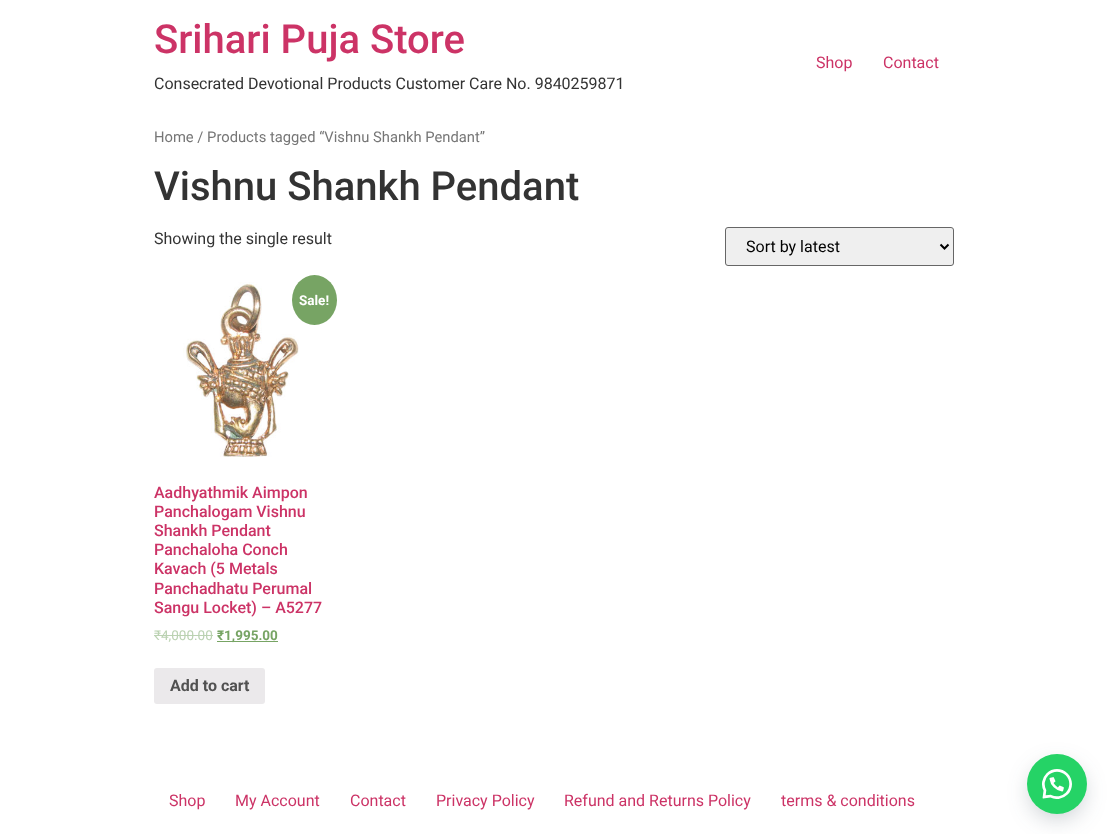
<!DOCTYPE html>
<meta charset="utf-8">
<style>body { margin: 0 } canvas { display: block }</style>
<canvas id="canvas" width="1107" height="834"></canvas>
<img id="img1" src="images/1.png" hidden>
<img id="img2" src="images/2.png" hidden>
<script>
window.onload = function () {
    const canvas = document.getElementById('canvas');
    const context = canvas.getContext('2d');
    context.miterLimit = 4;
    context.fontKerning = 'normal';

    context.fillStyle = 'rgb(255, 255, 255)';
    context.fillRect(0, 0, 1107, 834);
    context.fillStyle = 'rgb(239, 239, 239)';
    context.beginPath();
    context.roundRect(725.5, 227.5, 228, 38, 2.5);
    context.fill();
    context.strokeStyle = 'rgb(102, 102, 102)';
    context.stroke();
    context.beginPath();
    context.moveTo(940.5, 244.5);
    context.lineTo(944.5, 248.5);
    context.lineTo(948.5, 244.5);
    context.strokeStyle = 'rgb(0, 0, 0)';
    context.lineWidth = 2;
    context.stroke();
    context.drawImage(document.getElementById('img1'), 183, 282, 116, 175);
    context.fillStyle = 'rgb(119, 164, 100)';
    context.beginPath();
    context.ellipse(314.5, 300, 22.5, 25, 0, 0, 2 * Math.PI);
    context.fill();
    context.fillStyle = 'rgb(187, 210, 178)';
    context.fillRect(154, 635, 7, 1);
    context.fillRect(161, 635, 52, 1);
    context.fillStyle = 'rgb(119, 164, 100)';
    context.fillRect(217, 641, 61, 1);
    context.fillStyle = 'rgb(235, 233, 235)';
    context.beginPath();
    context.roundRect(154, 668, 111, 36, 3);
    context.fill();
    context.fillStyle = 'rgba(45, 62, 79, 0.3)';
    context.filter = 'blur(12.5px)';
    context.beginPath();
    context.roundRect(1032, 767, 50, 50, 25);
    context.fill();
    context.filter = 'none';
    context.fillStyle = 'rgb(37, 211, 102)';
    context.beginPath();
    context.arc(1057, 784, 30, 0, 2 * Math.PI);
    context.fill();
    context.drawImage(document.getElementById('img2'), 1042, 769, 30, 30);
    context.font = '500 40px Roboto';
    context.fillStyle = 'rgb(204, 51, 102)';
    context.fillText('Srihari Puja Store', 154, 53);
    context.font = '16px Roboto';
    context.fillStyle = 'rgb(51, 51, 51)';
    context.fillText('Consecrated Devotional Products Customer Care No. 9840259871', 154, 89);
    context.fillStyle = 'rgb(204, 51, 102)';
    context.fillText('Shop', 816, 68);
    context.fillText('Contact', 883, 68);
    context.font = '14.75px Roboto';
    context.fillStyle = 'rgb(118, 118, 118)';
    context.fillText('Home / Products tagged “Vishnu Shankh Pendant”', 154, 142);
    context.font = '500 40px Roboto';
    context.fillStyle = 'rgb(51, 51, 51)';
    context.fillText('Vishnu Shankh Pendant', 154, 200);
    context.font = '16px Roboto';
    context.fillText('Showing the single result', 154, 244);
    context.fillStyle = 'rgb(0, 0, 0)';
    context.fillText('Sort by latest', 746, 252);
    context.font = 'bold 13.5px Roboto';
    context.fillStyle = 'rgb(255, 255, 255)';
    context.fillText('Sale!', 299, 305);
    context.font = '500 16px Roboto';
    context.fillStyle = 'rgb(204, 51, 102)';
    context.fillText('Aadhyathmik Aimpon', 154, 498);
    context.fillText('Panchalogam Vishnu', 154, 517);
    context.fillText('Shankh Pendant', 154, 536);
    context.fillText('Panchaloha Conch', 154, 555);
    context.fillText('Kavach (5 Metals', 154, 574);
    context.fillText('Panchadhatu Perumal', 154, 594);
    context.fillText('Sangu Locket) – A5277', 154, 613);
    context.font = '13.5px Roboto';
    context.fillStyle = 'rgb(187, 210, 178)';
    context.fillText('₹', 154, 640);
    context.fillText('4,000.00', 161, 640);
    context.font = 'bold 13.5px Roboto';
    context.fillStyle = 'rgb(119, 164, 100)';
    context.fillText('₹1,995.00', 217, 640);
    context.font = 'bold 16px Roboto';
    context.fillStyle = 'rgb(81, 81, 81)';
    context.fillText('Add to cart', 170, 691);
    context.font = '16px Roboto';
    context.fillStyle = 'rgb(204, 51, 102)';
    context.fillText('Shop', 169, 806);
    context.fillText('My Account', 235, 806);
    context.fillText('Contact', 350, 806);
    context.fillText('Privacy Policy', 436, 806);
    context.fillText('Refund and Returns Policy', 564, 806);
    context.fillText('terms & conditions', 781, 806);
};
</script>
